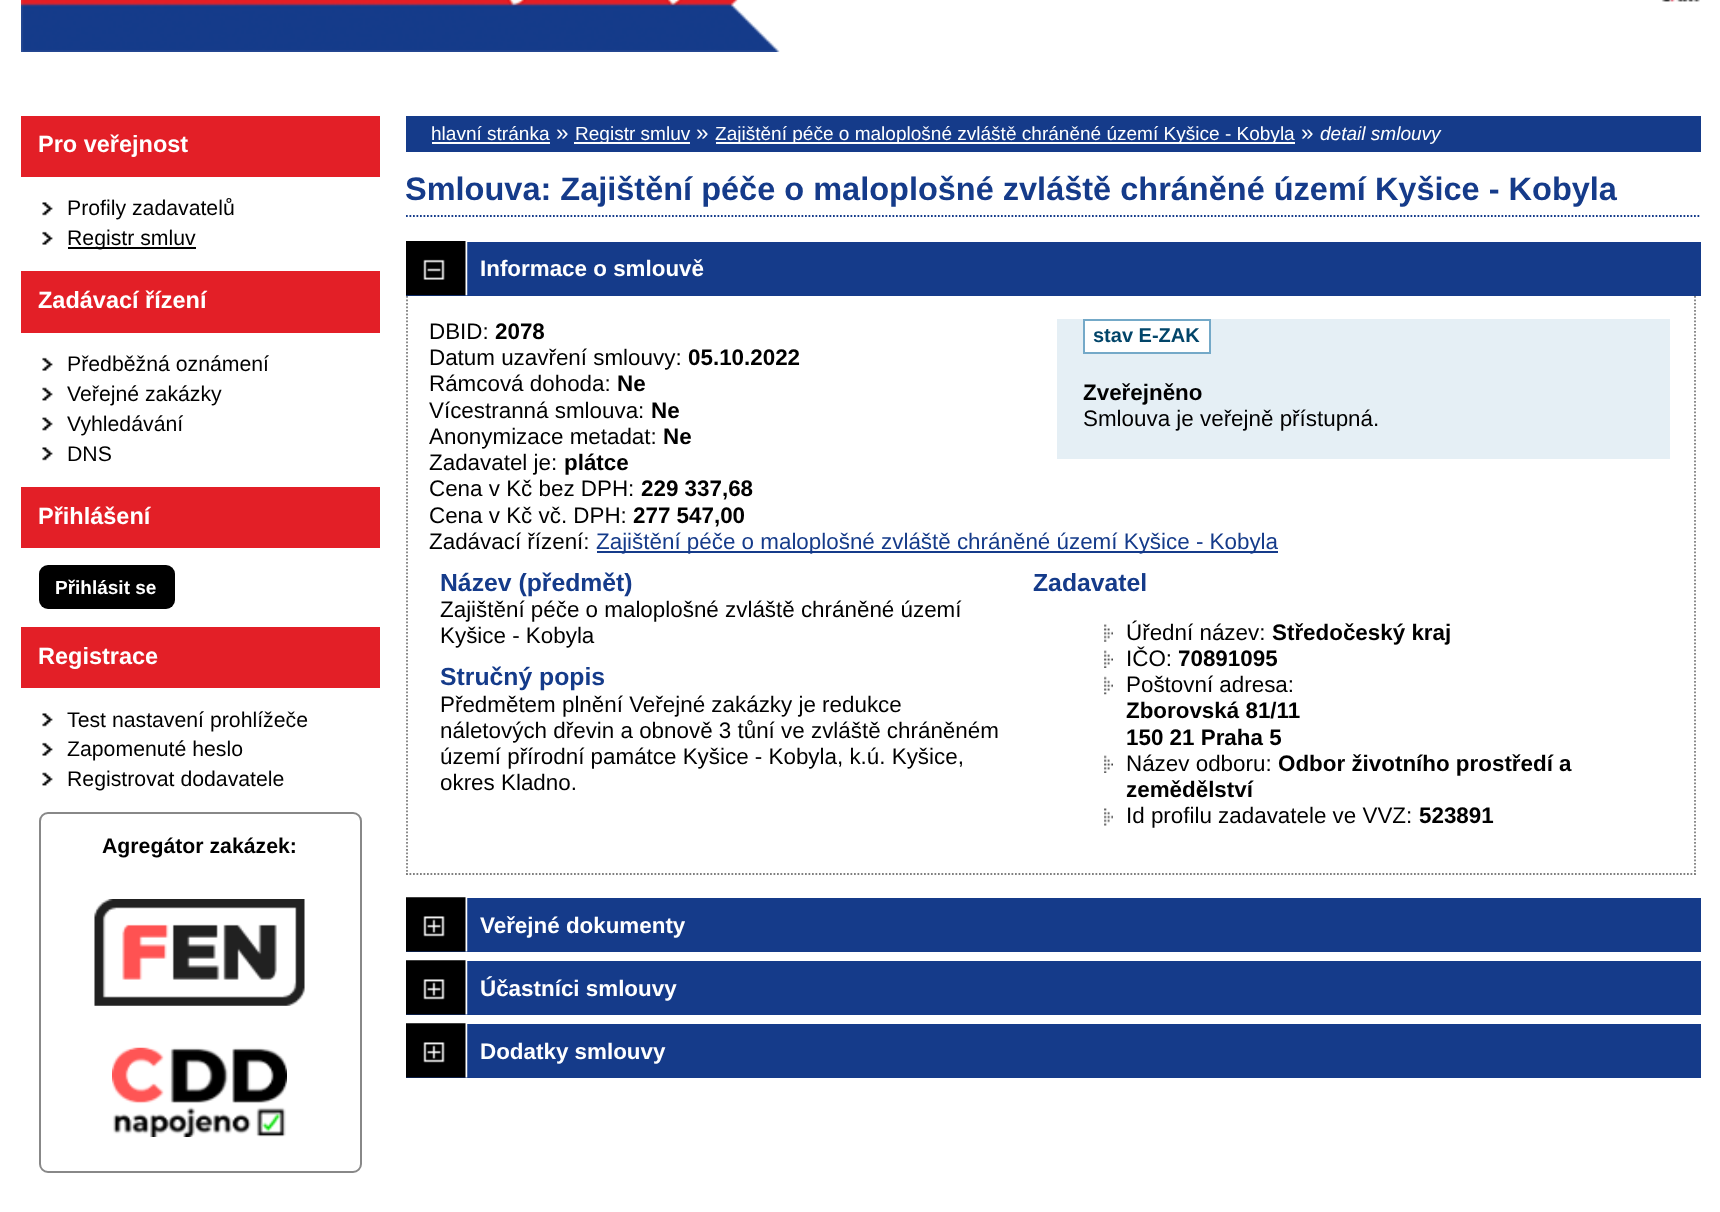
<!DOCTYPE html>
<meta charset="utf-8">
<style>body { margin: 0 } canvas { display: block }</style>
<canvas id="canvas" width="1720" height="1212"></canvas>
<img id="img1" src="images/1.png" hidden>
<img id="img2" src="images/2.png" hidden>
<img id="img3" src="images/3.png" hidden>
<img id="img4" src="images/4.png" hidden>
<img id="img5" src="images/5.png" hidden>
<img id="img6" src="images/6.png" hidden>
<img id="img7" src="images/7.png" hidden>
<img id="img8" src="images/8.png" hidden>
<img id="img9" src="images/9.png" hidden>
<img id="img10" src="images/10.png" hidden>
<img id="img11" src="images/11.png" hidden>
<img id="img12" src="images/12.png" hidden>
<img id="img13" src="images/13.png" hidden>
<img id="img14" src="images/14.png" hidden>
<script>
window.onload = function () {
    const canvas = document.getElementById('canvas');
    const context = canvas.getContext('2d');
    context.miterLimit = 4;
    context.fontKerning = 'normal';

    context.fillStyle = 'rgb(255, 255, 255)';
    context.fillRect(0, 0, 1720, 1212);
    context.drawImage(document.getElementById('img1'), 21, 0, 759, 52);
    context.drawImage(document.getElementById('img2'), 1661, 0, 39, 2);
    context.fillStyle = 'rgb(227, 31, 39)';
    context.fillRect(21, 116, 359, 61);
    context.drawImage(document.getElementById('img3'), 42, 202, 11, 14);
    context.drawImage(document.getElementById('img4'), 42, 231, 11, 14);
    context.fillStyle = 'rgb(0, 0, 0)';
    context.fillRect(68, 247, 128, 2);
    context.fillStyle = 'rgb(227, 31, 39)';
    context.fillRect(21, 271, 359, 62);
    context.drawImage(document.getElementById('img4'), 42, 357, 11, 14);
    context.drawImage(document.getElementById('img5'), 42, 387, 11, 14);
    context.drawImage(document.getElementById('img6'), 42, 417, 11, 14);
    context.drawImage(document.getElementById('img3'), 42, 447, 11, 14);
    context.fillRect(21, 487, 359, 61);
    context.fillStyle = 'rgb(0, 0, 0)';
    context.beginPath();
    context.roundRect(39, 565, 136, 44, 9);
    context.fill();
    context.fillStyle = 'rgb(227, 31, 39)';
    context.fillRect(21, 627, 359, 61);
    context.drawImage(document.getElementById('img3'), 42, 713, 11, 14);
    context.drawImage(document.getElementById('img4'), 42, 742, 11, 14);
    context.drawImage(document.getElementById('img5'), 42, 772, 11, 14);
    context.beginPath();
    context.roundRect(40, 813, 321, 359, 8);
    context.strokeStyle = 'rgb(136, 136, 136)';
    context.lineWidth = 2;
    context.stroke();
    context.drawImage(document.getElementById('img7'), 94, 899, 211, 107);
    context.drawImage(document.getElementById('img8'), 112, 1047, 175, 90);
    context.fillStyle = 'rgb(21, 59, 138)';
    context.fillRect(406, 116, 1295, 36);
    context.fillStyle = 'rgb(255, 255, 255)';
    context.fillRect(432, 142, 118, 2);
    context.fillRect(574, 142, 116, 2);
    context.fillRect(716, 142, 579, 2);
    context.beginPath();
    context.moveTo(406, 216);
    context.lineTo(1701, 216);
    context.strokeStyle = 'rgb(21, 59, 138)';
    context.lineWidth = 1.8;
    context.setLineDash([1.75, 1.75]);
    context.stroke();
    context.fillStyle = 'rgb(21, 59, 138)';
    context.fillRect(406, 242, 1295, 54);
    context.drawImage(document.getElementById('img9'), 406, 241, 62, 55);
    context.beginPath();
    context.moveTo(1695, 296);
    context.lineTo(1695, 875);
    context.strokeStyle = 'rgb(127, 127, 127)';
    context.stroke();
    context.beginPath();
    context.moveTo(406, 874);
    context.lineTo(1696, 874);
    context.stroke();
    context.beginPath();
    context.moveTo(407, 296);
    context.lineTo(407, 875);
    context.stroke();
    context.fillRect(597, 551, 681, 2);
    context.fillStyle = 'rgb(229, 239, 245)';
    context.fillRect(1057, 319, 613, 140);
    context.fillStyle = 'rgb(255, 255, 255)';
    context.beginPath();
    context.rect(1084, 320, 126, 33);
    context.fill();
    context.strokeStyle = 'rgb(116, 169, 200)';
    context.lineWidth = 2;
    context.setLineDash([]);
    context.stroke();
    context.drawImage(document.getElementById('img10'), 1104, 624, 9, 18);
    context.drawImage(document.getElementById('img11'), 1104, 650, 9, 18);
    context.drawImage(document.getElementById('img12'), 1104, 676, 9, 19);
    context.drawImage(document.getElementById('img11'), 1104, 755, 9, 18);
    context.drawImage(document.getElementById('img13'), 1104, 808, 9, 18);
    context.fillStyle = 'rgb(21, 59, 138)';
    context.fillRect(406, 898, 1295, 54);
    context.drawImage(document.getElementById('img14'), 406, 897, 62, 55);
    context.fillRect(406, 961, 1295, 54);
    context.drawImage(document.getElementById('img14'), 406, 960, 62, 55);
    context.fillRect(406, 1024, 1295, 54);
    context.drawImage(document.getElementById('img14'), 406, 1023, 62, 55);
    context.font = 'bold 23.5px Liberation Sans';
    context.fillStyle = 'rgb(255, 255, 255)';
    context.fillText('Pro veřejnost', 38, 152);
    context.font = '21.25px Liberation Sans';
    context.fillStyle = 'rgb(0, 0, 0)';
    context.fillText('Profily zadavatelů', 67, 215);
    context.fillText('Registr smluv', 67, 245);
    context.font = 'bold 23.5px Liberation Sans';
    context.fillStyle = 'rgb(255, 255, 255)';
    context.fillText('Zadávací řízení', 38, 308);
    context.font = '21.25px Liberation Sans';
    context.fillStyle = 'rgb(0, 0, 0)';
    context.fillText('Předběžná oznámení', 67, 371);
    context.fillText('Veřejné zakázky', 67, 401);
    context.fillText('Vyhledávání', 67, 431);
    context.fillText('DNS', 67, 461);
    context.font = 'bold 23.5px Liberation Sans';
    context.fillStyle = 'rgb(255, 255, 255)';
    context.fillText('Přihlášení', 38, 524);
    context.font = 'bold 19px Liberation Sans';
    context.fillText('Přihlásit se', 55, 594);
    context.font = 'bold 23.5px Liberation Sans';
    context.fillText('Registrace', 38, 664);
    context.font = '21.25px Liberation Sans';
    context.fillStyle = 'rgb(0, 0, 0)';
    context.fillText('Test nastavení prohlížeče', 67, 727);
    context.fillText('Zapomenuté heslo', 67, 756);
    context.fillText('Registrovat dodavatele', 67, 786);
    context.font = 'bold 21.25px Liberation Sans';
    context.fillText('Agregátor zakázek:', 102, 853);
    context.font = '19.05px Liberation Sans';
    context.fillStyle = 'rgb(255, 255, 255)';
    context.fillText('hlavní stránka', 431, 140);
    context.font = '22.4px Liberation Sans';
    context.fillText('»', 556, 140);
    context.font = '19.05px Liberation Sans';
    context.fillText('Registr smluv', 575, 140);
    context.font = '22.4px Liberation Sans';
    context.fillText('»', 696, 140);
    context.font = '19.05px Liberation Sans';
    context.fillText('Zajištění péče o maloplošné zvláště chráněné území Kyšice - Kobyla', 715, 140);
    context.font = '22.4px Liberation Sans';
    context.fillText('»', 1301, 140);
    context.font = 'italic 19.05px Liberation Sans';
    context.fillText('detail smlouvy', 1320, 140);
    context.font = 'bold 32.5px Liberation Sans';
    context.fillStyle = 'rgb(21, 59, 138)';
    context.fillText('Smlouva: Zajištění péče o maloplošné zvláště chráněné území Kyšice - Kobyla', 405, 200);
    context.font = 'bold 22.4px Liberation Sans';
    context.fillStyle = 'rgb(255, 255, 255)';
    context.fillText('Informace o smlouvě', 480, 276);
    context.font = '22.4px Liberation Sans';
    context.fillStyle = 'rgb(0, 0, 0)';
    context.fillText('DBID:', 429, 339);
    context.font = 'bold 22.4px Liberation Sans';
    context.fillText('2078', 495, 339);
    context.font = '22.4px Liberation Sans';
    context.fillText('Datum uzavření smlouvy:', 429, 365);
    context.font = 'bold 22.4px Liberation Sans';
    context.fillText('05.10.2022', 688, 365);
    context.font = '22.4px Liberation Sans';
    context.fillText('Rámcová dohoda:', 429, 391);
    context.font = 'bold 22.4px Liberation Sans';
    context.fillText('Ne', 617, 391);
    context.font = '22.4px Liberation Sans';
    context.fillText('Vícestranná smlouva:', 429, 418);
    context.font = 'bold 22.4px Liberation Sans';
    context.fillText('Ne', 651, 418);
    context.font = '22.4px Liberation Sans';
    context.fillText('Anonymizace metadat:', 429, 444);
    context.font = 'bold 22.4px Liberation Sans';
    context.fillText('Ne', 663, 444);
    context.font = '22.4px Liberation Sans';
    context.fillText('Zadavatel je:', 429, 470);
    context.font = 'bold 22.4px Liberation Sans';
    context.fillText('plátce', 564, 470);
    context.font = '22.4px Liberation Sans';
    context.fillText('Cena v Kč bez DPH:', 429, 496);
    context.font = 'bold 22.4px Liberation Sans';
    context.fillText('229 337,68', 641, 496);
    context.font = '22.4px Liberation Sans';
    context.fillText('Cena v Kč vč. DPH:', 429, 523);
    context.font = 'bold 22.4px Liberation Sans';
    context.fillText('277 547,00', 633, 523);
    context.font = '22.4px Liberation Sans';
    context.fillText('Zadávací řízení:', 429, 549);
    context.fillStyle = 'rgb(21, 59, 138)';
    context.fillText('Zajištění péče o maloplošné zvláště chráněné území Kyšice - Kobyla', 596, 549);
    context.font = 'bold 20px Liberation Sans';
    context.fillStyle = 'rgb(2, 69, 105)';
    context.fillText('stav E-ZAK', 1093, 342);
    context.font = 'bold 22.4px Liberation Sans';
    context.fillStyle = 'rgb(0, 0, 0)';
    context.fillText('Zveřejněno', 1083, 400);
    context.font = '22.4px Liberation Sans';
    context.fillText('Smlouva je veřejně přístupná.', 1083, 426);
    context.font = 'bold 24.75px Liberation Sans';
    context.fillStyle = 'rgb(21, 59, 138)';
    context.fillText('Název (předmět)', 440, 591);
    context.font = '22.4px Liberation Sans';
    context.fillStyle = 'rgb(0, 0, 0)';
    context.fillText('Zajištění péče o maloplošné zvláště chráněné území', 440, 617);
    context.fillText('Kyšice - Kobyla', 440, 643);
    context.font = 'bold 24.75px Liberation Sans';
    context.fillStyle = 'rgb(21, 59, 138)';
    context.fillText('Stručný popis', 440, 685);
    context.font = '22.4px Liberation Sans';
    context.fillStyle = 'rgb(0, 0, 0)';
    context.fillText('Předmětem plnění Veřejné zakázky je redukce', 440, 712);
    context.fillText('náletových dřevin a obnově 3 tůní ve zvláště chráněném', 440, 738);
    context.fillText('území přírodní památce Kyšice - Kobyla, k.ú. Kyšice,', 440, 764);
    context.fillText('okres Kladno.', 440, 790);
    context.font = 'bold 24.75px Liberation Sans';
    context.fillStyle = 'rgb(21, 59, 138)';
    context.fillText('Zadavatel', 1033, 591);
    context.font = '22.4px Liberation Sans';
    context.fillStyle = 'rgb(0, 0, 0)';
    context.fillText('Úřední název:', 1126, 640);
    context.font = 'bold 22.4px Liberation Sans';
    context.fillText('Středočeský kraj', 1272, 640);
    context.font = '22.4px Liberation Sans';
    context.fillText('IČO:', 1126, 666);
    context.font = 'bold 22.4px Liberation Sans';
    context.fillText('70891095', 1178, 666);
    context.font = '22.4px Liberation Sans';
    context.fillText('Poštovní adresa:', 1126, 692);
    context.font = 'bold 22.4px Liberation Sans';
    context.fillText('Zborovská 81/11', 1126, 718);
    context.fillText('150 21 Praha 5', 1126, 745);
    context.font = '22.4px Liberation Sans';
    context.fillText('Název odboru:', 1126, 771);
    context.font = 'bold 22.4px Liberation Sans';
    context.fillText('Odbor životního prostředí a', 1278, 771);
    context.fillText('zemědělství', 1126, 797);
    context.font = '22.4px Liberation Sans';
    context.fillText('Id profilu zadavatele ve VVZ:', 1126, 823);
    context.font = 'bold 22.4px Liberation Sans';
    context.fillText('523891', 1419, 823);
    context.fillStyle = 'rgb(255, 255, 255)';
    context.fillText('Veřejné dokumenty', 480, 933);
    context.fillText('Účastníci smlouvy', 480, 996);
    context.fillText('Dodatky smlouvy', 480, 1059);
};
</script>
